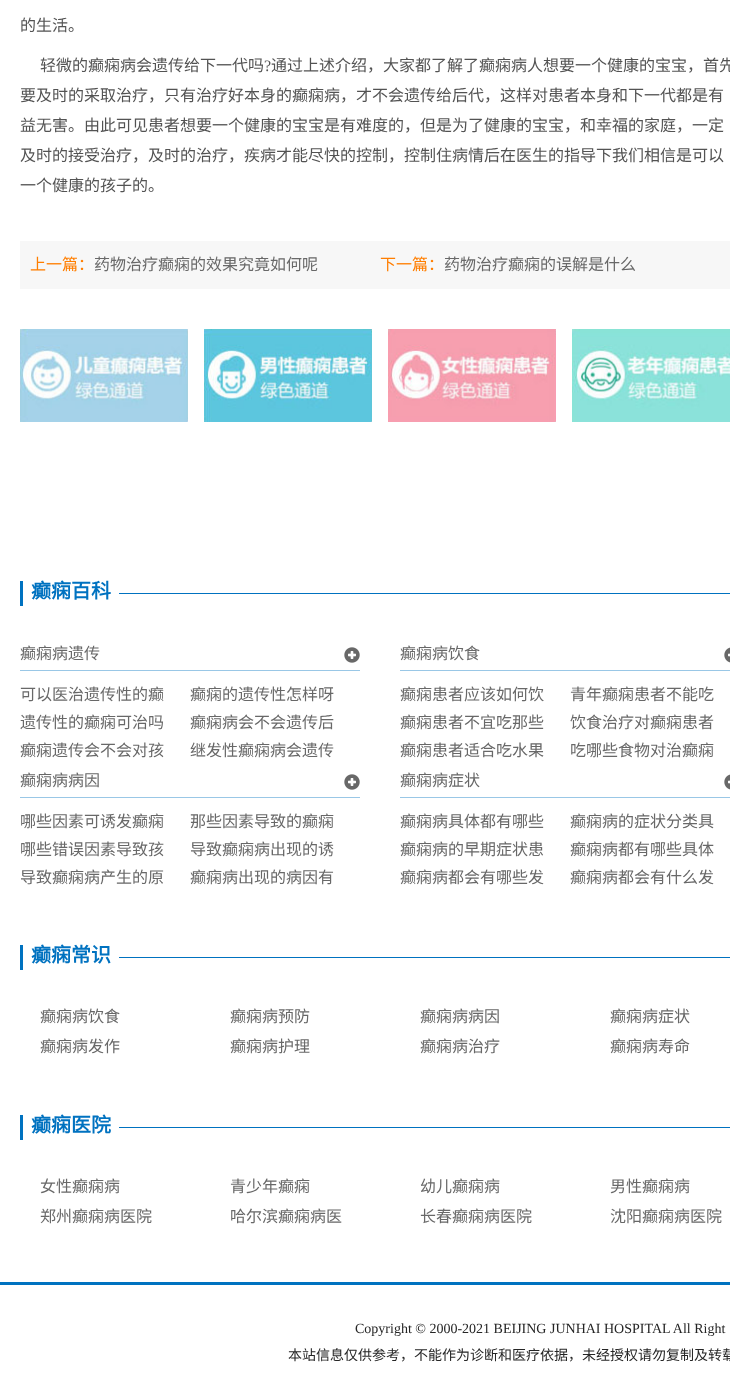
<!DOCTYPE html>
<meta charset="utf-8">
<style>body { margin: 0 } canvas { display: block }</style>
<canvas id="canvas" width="730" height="1399"></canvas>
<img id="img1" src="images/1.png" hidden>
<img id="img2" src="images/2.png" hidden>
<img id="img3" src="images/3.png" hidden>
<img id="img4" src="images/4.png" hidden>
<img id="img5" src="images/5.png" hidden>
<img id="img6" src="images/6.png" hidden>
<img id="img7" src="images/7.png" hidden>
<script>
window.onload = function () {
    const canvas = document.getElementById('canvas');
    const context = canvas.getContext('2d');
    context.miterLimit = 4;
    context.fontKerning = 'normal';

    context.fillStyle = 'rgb(255, 255, 255)';
    context.fillRect(0, 0, 730, 1399);
    context.fillStyle = 'rgb(247, 247, 247)';
    context.fillRect(20, 241, 710, 48);
    context.drawImage(document.getElementById('img1'), 20, 329, 168, 93);
    context.drawImage(document.getElementById('img2'), 204, 329, 168, 93);
    context.drawImage(document.getElementById('img3'), 388, 329, 168, 93);
    context.drawImage(document.getElementById('img4'), 572, 329, 158, 93);
    context.drawImage(document.getElementById('img5'), 20, 581, 710, 25);
    context.fillStyle = 'rgb(255, 255, 255)';
    context.fillRect(23, 593, 96, 1);
    context.fillStyle = 'rgb(153, 199, 230)';
    context.fillRect(20, 670, 340, 1);
    context.drawImage(document.getElementById('img6'), 344, 647, 16, 16);
    context.fillRect(400, 670, 330, 1);
    context.drawImage(document.getElementById('img7'), 724, 647, 6, 16);
    context.fillRect(20, 797, 340, 1);
    context.drawImage(document.getElementById('img6'), 344, 774, 16, 16);
    context.fillRect(400, 797, 330, 1);
    context.drawImage(document.getElementById('img7'), 724, 774, 6, 16);
    context.drawImage(document.getElementById('img5'), 20, 945, 710, 25);
    context.fillStyle = 'rgb(255, 255, 255)';
    context.fillRect(23, 957, 96, 1);
    context.drawImage(document.getElementById('img5'), 20, 1115, 710, 25);
    context.fillRect(23, 1127, 96, 1);
    context.fillStyle = 'rgb(0, 114, 192)';
    context.fillRect(0, 1282, 730, 3);
    context.font = '16px Noto Sans CJK SC';
    context.fillStyle = 'rgb(83, 83, 83)';
    context.fillText('的生活。', 20, 31);
    context.fillText('轻微的癫痫病会遗传给下一代吗', 40, 71);
    context.font = '16px Liberation Serif';
    context.fillText('?', 264, 71);
    context.font = '16px Noto Sans CJK SC';
    context.fillText('通过上述介绍，大家都了解了癫痫病人想要一个健康的宝宝，首先', 271, 71);
    context.fillText('要及时的采取治疗，只有治疗好本身的癫痫病，才不会遗传给后代，这样对患者本身和下一代都是有', 20, 101);
    context.fillText('益无害。由此可见患者想要一个健康的宝宝是有难度的，但是为了健康的宝宝，和幸福的家庭，一定', 20, 131);
    context.fillText('及时的接受治疗，及时的治疗，疾病才能尽快的控制，控制住病情后在医生的指导下我们相信是可以', 20, 161);
    context.fillText('一个健康的孩子的。', 20, 191);
    context.fillStyle = 'rgb(255, 126, 0)';
    context.fillText('上一篇：', 30, 270);
    context.fillStyle = 'rgb(104, 104, 104)';
    context.fillText('药物治疗癫痫的效果究竟如何呢', 94, 270);
    context.fillStyle = 'rgb(255, 126, 0)';
    context.fillText('下一篇：', 380, 270);
    context.fillStyle = 'rgb(104, 104, 104)';
    context.fillText('药物治疗癫痫的误解是什么', 444, 270);
    context.font = 'bold 20px Noto Sans CJK SC';
    context.fillStyle = 'rgb(0, 114, 192)';
    context.fillText('癫痫百科', 31, 598);
    context.font = '16px Noto Sans CJK SC';
    context.fillStyle = 'rgb(104, 104, 104)';
    context.fillText('癫痫病遗传', 20, 659);
    context.fillText('可以医治遗传性的癫', 20, 700);
    context.fillText('癫痫的遗传性怎样呀', 190, 700);
    context.fillText('遗传性的癫痫可治吗', 20, 728);
    context.fillText('癫痫病会不会遗传后', 190, 728);
    context.fillText('癫痫遗传会不会对孩', 20, 756);
    context.fillText('继发性癫痫病会遗传', 190, 756);
    context.fillText('癫痫病饮食', 400, 659);
    context.fillText('癫痫患者应该如何饮', 400, 700);
    context.fillText('青年癫痫患者不能吃', 570, 700);
    context.fillText('癫痫患者不宜吃那些', 400, 728);
    context.fillText('饮食治疗对癫痫患者', 570, 728);
    context.fillText('癫痫患者适合吃水果', 400, 756);
    context.fillText('吃哪些食物对治癫痫', 570, 756);
    context.fillText('癫痫病病因', 20, 786);
    context.fillText('哪些因素可诱发癫痫', 20, 827);
    context.fillText('那些因素导致的癫痫', 190, 827);
    context.fillText('哪些错误因素导致孩', 20, 855);
    context.fillText('导致癫痫病出现的诱', 190, 855);
    context.fillText('导致癫痫病产生的原', 20, 883);
    context.fillText('癫痫病出现的病因有', 190, 883);
    context.fillText('癫痫病症状', 400, 786);
    context.fillText('癫痫病具体都有哪些', 400, 827);
    context.fillText('癫痫病的症状分类具', 570, 827);
    context.fillText('癫痫病的早期症状患', 400, 855);
    context.fillText('癫痫病都有哪些具体', 570, 855);
    context.fillText('癫痫病都会有哪些发', 400, 883);
    context.fillText('癫痫病都会有什么发', 570, 883);
    context.font = 'bold 20px Noto Sans CJK SC';
    context.fillStyle = 'rgb(0, 114, 192)';
    context.fillText('癫痫常识', 31, 962);
    context.font = '16px Noto Sans CJK SC';
    context.fillStyle = 'rgb(104, 104, 104)';
    context.fillText('癫痫病饮食', 40, 1022);
    context.fillText('癫痫病预防', 230, 1022);
    context.fillText('癫痫病病因', 420, 1022);
    context.fillText('癫痫病症状', 610, 1022);
    context.fillText('癫痫病发作', 40, 1052);
    context.fillText('癫痫病护理', 230, 1052);
    context.fillText('癫痫病治疗', 420, 1052);
    context.fillText('癫痫病寿命', 610, 1052);
    context.font = 'bold 20px Noto Sans CJK SC';
    context.fillStyle = 'rgb(0, 114, 192)';
    context.fillText('癫痫医院', 31, 1132);
    context.font = '16px Noto Sans CJK SC';
    context.fillStyle = 'rgb(104, 104, 104)';
    context.fillText('女性癫痫病', 40, 1192);
    context.fillText('青少年癫痫', 230, 1192);
    context.fillText('幼儿癫痫病', 420, 1192);
    context.fillText('男性癫痫病', 610, 1192);
    context.fillText('郑州癫痫病医院', 40, 1222);
    context.fillText('哈尔滨癫痫病医', 230, 1222);
    context.fillText('长春癫痫病医院', 420, 1222);
    context.fillText('沈阳癫痫病医院', 610, 1222);
    context.font = '14px Liberation Serif';
    context.fillStyle = 'rgb(37, 37, 37)';
    context.fillText('Copyright © 2000-2021 BEIJING JUNHAI HOSPITAL All Right', 355, 1333);
    context.font = '14px Noto Sans CJK SC';
    context.fillText('本站信息仅供参考，不能作为诊断和医疗依据，未经授权请勿复制及转载', 288, 1360);
};
</script>
